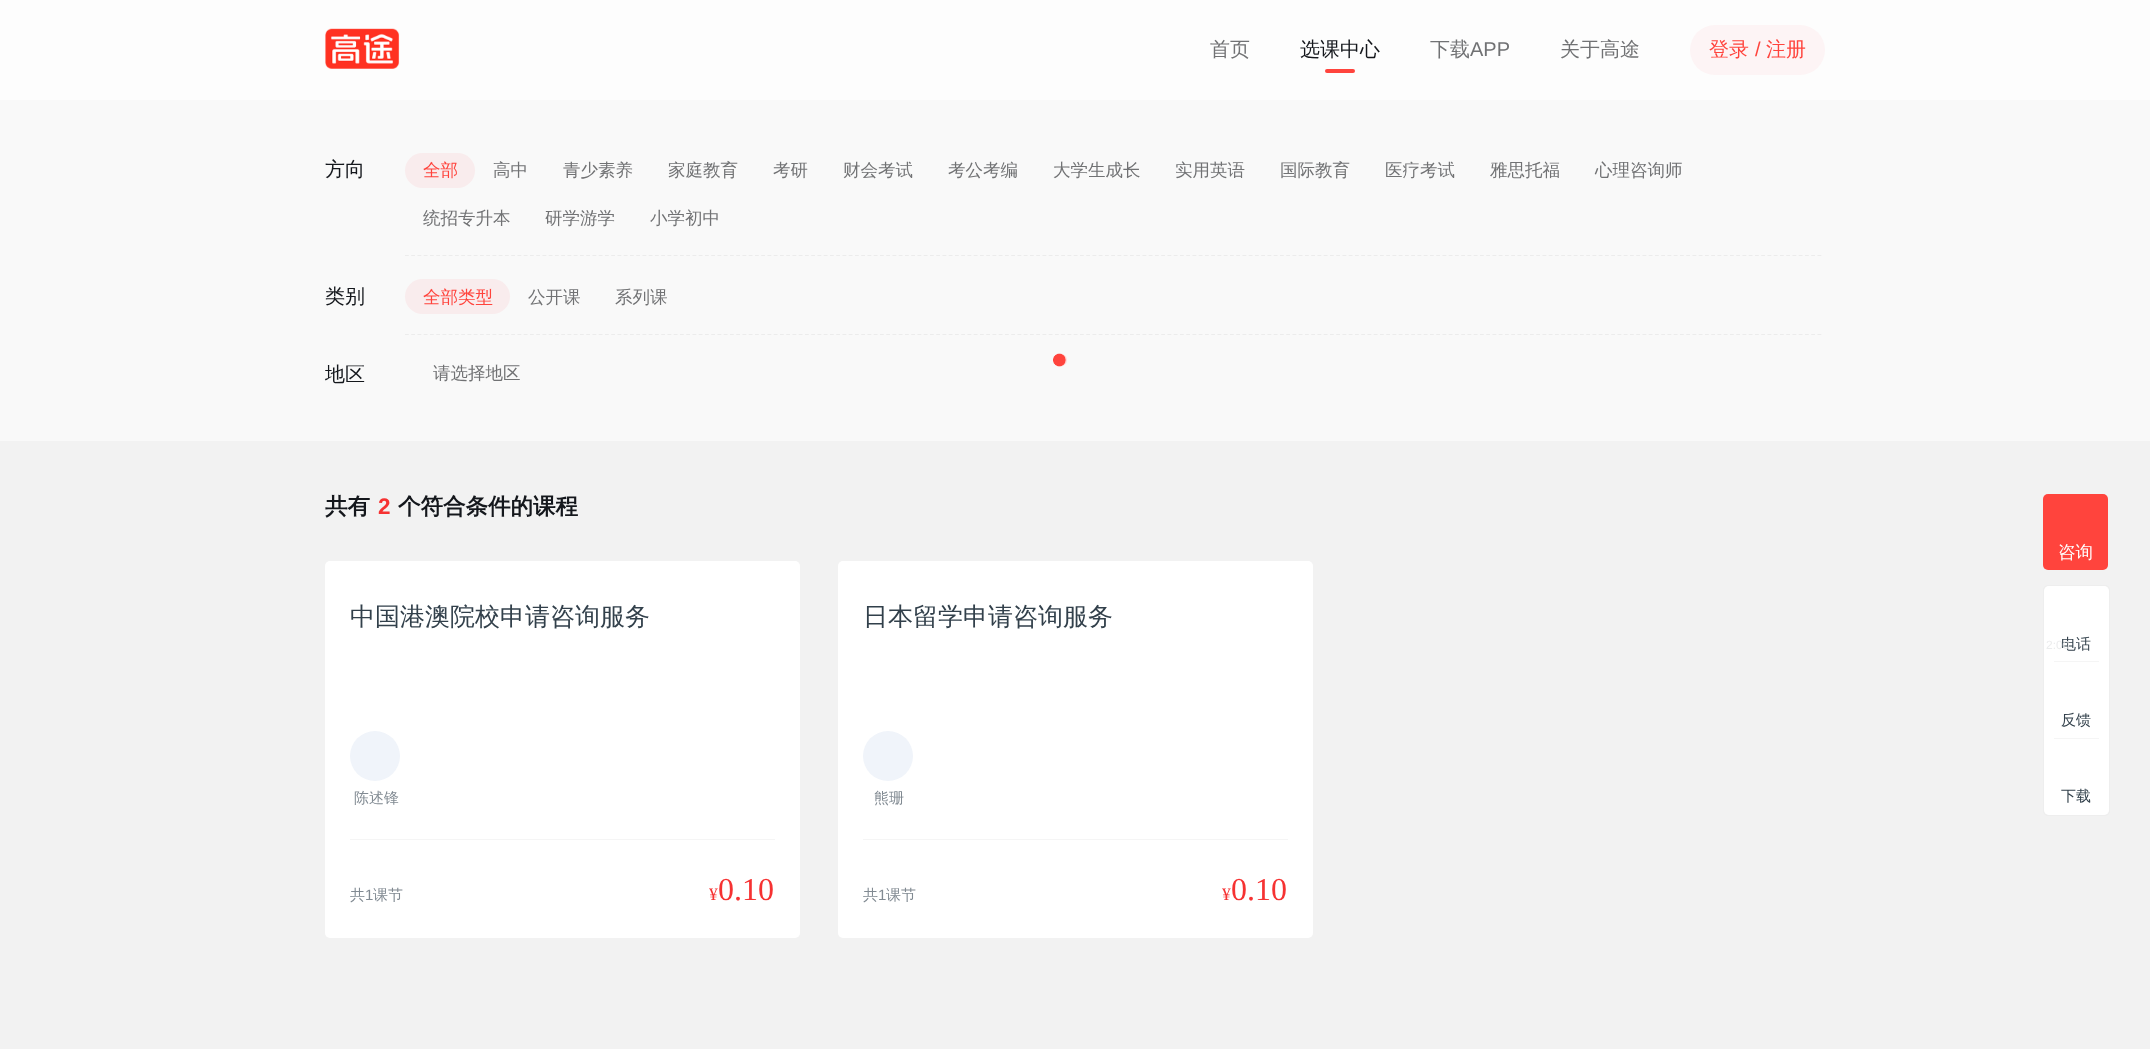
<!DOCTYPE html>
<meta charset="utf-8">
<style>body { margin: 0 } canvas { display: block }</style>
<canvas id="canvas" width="2150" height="1049"></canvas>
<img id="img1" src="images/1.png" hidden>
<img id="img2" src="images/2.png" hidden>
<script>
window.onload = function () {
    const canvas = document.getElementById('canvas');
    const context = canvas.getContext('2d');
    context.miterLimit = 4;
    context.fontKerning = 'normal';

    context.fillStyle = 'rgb(242, 242, 242)';
    context.fillRect(0, 0, 2150, 1049);
    context.fillStyle = 'rgb(253, 253, 253)';
    context.fillRect(0, 0, 2150, 100);
    context.drawImage(document.getElementById('img1'), 325, 28, 75, 41);
    context.fillStyle = 'rgb(255, 68, 61)';
    context.beginPath();
    context.roundRect(1325, 69, 30, 4, 2);
    context.fill();
    context.fillStyle = 'rgb(253, 244, 245)';
    context.beginPath();
    context.roundRect(1690, 25, 135, 50, 25);
    context.fill();
    context.fillStyle = 'rgb(249, 249, 249)';
    context.fillRect(0, 100, 2150, 341);
    context.fillStyle = 'rgb(249, 236, 237)';
    context.beginPath();
    context.roundRect(405, 153, 70, 35, 17.5);
    context.fill();
    context.beginPath();
    context.moveTo(405, 255.5);
    context.lineTo(1822.5, 255.5);
    context.strokeStyle = 'rgb(236, 236, 236)';
    context.lineWidth = 1.2;
    context.setLineDash([3.75, 2.5]);
    context.stroke();
    context.beginPath();
    context.roundRect(405, 279, 105, 35, 17.5);
    context.fill();
    context.beginPath();
    context.moveTo(405, 334.5);
    context.lineTo(1822.5, 334.5);
    context.stroke();
    context.drawImage(document.getElementById('img2'), 1053, 353, 14, 14);
    context.fillStyle = 'rgb(255, 255, 255)';
    context.beginPath();
    context.roundRect(325, 561, 475, 377, 5);
    context.fill();
    context.fillStyle = 'rgb(245, 245, 245)';
    context.fillRect(350, 839, 425, 1);
    context.fillStyle = 'rgb(240, 244, 250)';
    context.beginPath();
    context.arc(375, 756, 25, 0, 2 * Math.PI);
    context.fill();
    context.fillStyle = 'rgb(255, 255, 255)';
    context.beginPath();
    context.roundRect(838, 561, 475, 377, 5);
    context.fill();
    context.fillStyle = 'rgb(245, 245, 245)';
    context.fillRect(863, 839, 425, 1);
    context.fillStyle = 'rgb(240, 244, 250)';
    context.beginPath();
    context.arc(888, 756, 25, 0, 2 * Math.PI);
    context.fill();
    context.fillStyle = 'rgb(255, 68, 61)';
    context.beginPath();
    context.roundRect(2043, 494, 65, 76, 5);
    context.fill();
    context.beginPath();
    context.roundRect(2043.5, 585.5, 66, 230, 4.5);
    context.strokeStyle = 'rgb(238, 238, 238)';
    context.lineWidth = 1;
    context.setLineDash([]);
    context.stroke();
    context.fillStyle = 'rgb(255, 255, 255)';
    context.beginPath();
    context.roundRect(2044, 586, 65, 77, [5, 5, 0, 0]);
    context.fill();
    context.fillRect(2044, 663, 65, 76);
    context.fillStyle = 'rgb(245, 245, 245)';
    context.fillRect(2054, 661, 45, 1);
    context.fillStyle = 'rgb(255, 255, 255)';
    context.beginPath();
    context.roundRect(2044, 739, 65, 76, [0, 0, 5, 5]);
    context.fill();
    context.fillStyle = 'rgb(245, 245, 245)';
    context.fillRect(2054, 738, 45, 1);
    context.font = '500 20px WenQuanYi Zen Hei';
    context.fillStyle = 'rgb(113, 114, 116)';
    context.fillText('首页', 1210, 56);
    context.fillStyle = 'rgb(20, 23, 28)';
    context.fillText('选课中心', 1300, 56);
    context.fillStyle = 'rgb(113, 114, 116)';
    context.fillText('下载', 1430, 56);
    context.font = '20px Liberation Sans';
    context.fillText('APP', 1470, 56);
    context.font = '500 20px WenQuanYi Zen Hei';
    context.fillText('关于高途', 1560, 56);
    context.fillStyle = 'rgb(255, 68, 61)';
    context.fillText('登录', 1709, 56);
    context.font = '20px Liberation Sans';
    context.fillText('/', 1755, 56);
    context.font = '500 20px WenQuanYi Zen Hei';
    context.fillText('注册', 1766, 56);
    context.fillStyle = 'rgb(20, 23, 28)';
    context.fillText('方向', 325, 176);
    context.font = '500 17.5px WenQuanYi Zen Hei';
    context.fillStyle = 'rgb(255, 68, 61)';
    context.fillText('全部', 423, 176);
    context.fillStyle = 'rgb(113, 114, 116)';
    context.fillText('高中', 493, 176);
    context.fillText('青少素养', 563, 176);
    context.fillText('家庭教育', 668, 176);
    context.fillText('考研', 773, 176);
    context.fillText('财会考试', 843, 176);
    context.fillText('考公考编', 948, 176);
    context.fillText('大学生成长', 1053, 176);
    context.fillText('实用英语', 1175, 176);
    context.fillText('国际教育', 1280, 176);
    context.fillText('医疗考试', 1385, 176);
    context.fillText('雅思托福', 1490, 176);
    context.fillText('心理咨询师', 1595, 176);
    context.fillText('统招专升本', 423, 224);
    context.fillText('研学游学', 545, 224);
    context.fillText('小学初中', 650, 224);
    context.font = '500 20px WenQuanYi Zen Hei';
    context.fillStyle = 'rgb(20, 23, 28)';
    context.fillText('类别', 325, 303);
    context.font = '500 17.5px WenQuanYi Zen Hei';
    context.fillStyle = 'rgb(255, 68, 61)';
    context.fillText('全部类型', 423, 303);
    context.fillStyle = 'rgb(113, 114, 116)';
    context.fillText('公开课', 528, 303);
    context.fillText('系列课', 615, 303);
    context.font = '500 20px WenQuanYi Zen Hei';
    context.fillStyle = 'rgb(20, 23, 28)';
    context.fillText('地区', 325, 381);
    context.font = '500 17.5px WenQuanYi Zen Hei';
    context.fillStyle = 'rgb(113, 114, 116)';
    context.fillText('请选择地区', 433, 379);
    context.font = 'bold 22.5px WenQuanYi Zen Hei';
    context.fillStyle = 'rgb(20, 23, 28)';
    context.fillText('共有', 325, 514);
    context.font = 'bold 22.5px Liberation Sans';
    context.fillStyle = 'rgb(246, 50, 50)';
    context.fillText('2', 378, 514);
    context.font = 'bold 22.5px WenQuanYi Zen Hei';
    context.fillStyle = 'rgb(20, 23, 28)';
    context.fillText('个符合条件的课程', 398, 514);
    context.font = '500 25px WenQuanYi Zen Hei';
    context.fillStyle = 'rgb(50, 64, 75)';
    context.fillText('中国港澳院校申请咨询服务', 350, 625);
    context.font = '500 15px WenQuanYi Zen Hei';
    context.fillStyle = 'rgb(129, 138, 146)';
    context.fillText('陈述锋', 354, 803);
    context.fillText('共', 350, 900);
    context.font = '15px Liberation Sans';
    context.fillText('1', 365, 900);
    context.font = '500 15px WenQuanYi Zen Hei';
    context.fillText('课节', 373, 900);
    context.font = '17.5px Liberation Serif';
    context.fillStyle = 'rgb(246, 50, 50)';
    context.fillText('¥', 709, 900);
    context.font = '32px Liberation Serif';
    context.fillText('0.10', 718, 900);
    context.font = '500 25px WenQuanYi Zen Hei';
    context.fillStyle = 'rgb(50, 64, 75)';
    context.fillText('日本留学申请咨询服务', 863, 625);
    context.font = '500 15px WenQuanYi Zen Hei';
    context.fillStyle = 'rgb(129, 138, 146)';
    context.fillText('熊珊', 874, 803);
    context.fillText('共', 863, 900);
    context.font = '15px Liberation Sans';
    context.fillText('1', 878, 900);
    context.font = '500 15px WenQuanYi Zen Hei';
    context.fillText('课节', 886, 900);
    context.font = '17.5px Liberation Serif';
    context.fillStyle = 'rgb(246, 50, 50)';
    context.fillText('¥', 1222, 900);
    context.font = '32px Liberation Serif';
    context.fillText('0.10', 1231, 900);
    context.font = '500 17.5px WenQuanYi Zen Hei';
    context.fillStyle = 'rgb(255, 255, 255)';
    context.fillText('咨询', 2058, 558);
    context.font = '500 15px WenQuanYi Zen Hei';
    context.fillStyle = 'rgb(50, 64, 75)';
    context.fillText('电话', 2061, 649);
    context.font = '12px Liberation Sans';
    context.fillStyle = 'rgb(235, 236, 237)';
    context.fillText('2:00', 2046, 649);
    context.font = '500 15px WenQuanYi Zen Hei';
    context.fillStyle = 'rgb(50, 64, 75)';
    context.fillText('反馈', 2061, 725);
    context.fillText('下载', 2061, 801);
};
</script>
